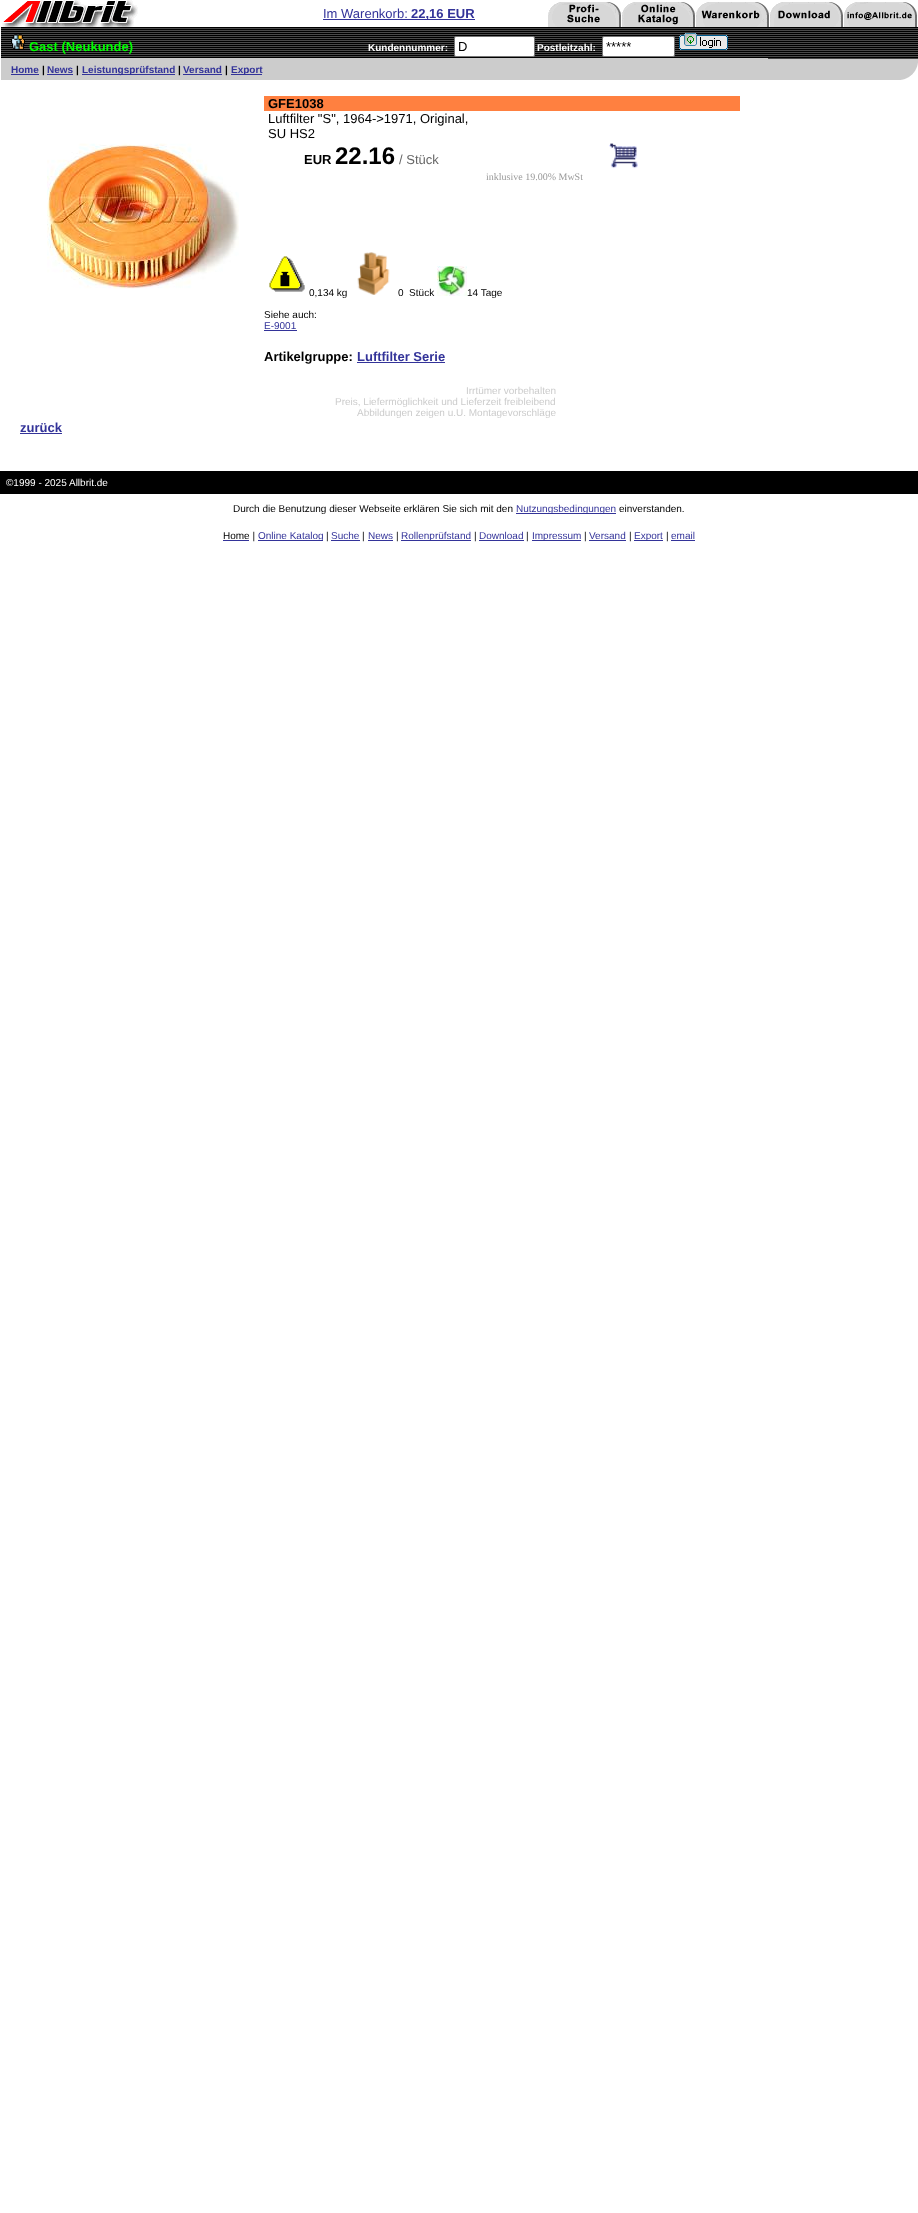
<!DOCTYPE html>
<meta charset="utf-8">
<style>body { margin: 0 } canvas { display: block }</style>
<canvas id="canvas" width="918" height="2213"></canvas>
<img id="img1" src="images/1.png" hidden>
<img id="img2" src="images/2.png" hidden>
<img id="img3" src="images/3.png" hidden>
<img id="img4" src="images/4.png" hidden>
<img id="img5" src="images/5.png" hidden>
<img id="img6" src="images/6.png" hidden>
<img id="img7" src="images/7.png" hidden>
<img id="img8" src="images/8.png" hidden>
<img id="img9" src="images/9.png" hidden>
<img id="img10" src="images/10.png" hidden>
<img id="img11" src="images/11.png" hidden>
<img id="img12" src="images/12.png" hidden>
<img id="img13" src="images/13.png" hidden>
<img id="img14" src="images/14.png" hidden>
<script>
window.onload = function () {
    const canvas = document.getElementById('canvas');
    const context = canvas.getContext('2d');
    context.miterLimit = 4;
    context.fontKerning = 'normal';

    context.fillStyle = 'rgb(255, 255, 255)';
    context.fillRect(0, 0, 918, 2213);
    context.drawImage(document.getElementById('img1'), 2, 0, 136, 27);
    context.fillStyle = 'rgb(51, 51, 153)';
    context.fillRect(323, 19, 152, 1);
    context.drawImage(document.getElementById('img2'), 548, 2, 369, 25);
    context.drawImage(document.getElementById('img3'), 1, 27, 10, 31);
    context.drawImage(document.getElementById('img4'), 11, 27, 357, 31);
    context.drawImage(document.getElementById('img5'), 11, 34, 14, 15);
    context.drawImage(document.getElementById('img6'), 368, 27, 400, 31);
    context.fillStyle = 'rgb(255, 255, 255)';
    context.beginPath();
    context.roundRect(454.5, 36.5, 80, 20, 1.5);
    context.fill();
    context.strokeStyle = 'rgb(118, 118, 118)';
    context.stroke();
    context.beginPath();
    context.roundRect(602.5, 36.5, 72, 20, 1.5);
    context.fill();
    context.stroke();
    context.drawImage(document.getElementById('img7'), 679, 33, 49, 17);
    context.drawImage(document.getElementById('img8'), 768, 27, 150, 31);
    context.fillStyle = 'rgb(204, 204, 204)';
    context.fillRect(1, 58, 767, 22);
    context.fillStyle = 'rgb(51, 51, 153)';
    context.fillRect(11, 74, 28, 1);
    context.fillRect(47, 74, 26, 1);
    context.fillRect(82, 74, 93, 1);
    context.fillRect(183, 74, 39, 1);
    context.fillRect(231, 74, 31, 1);
    context.drawImage(document.getElementById('img9'), 768, 58, 150, 22);
    context.fillStyle = 'rgb(255, 128, 64)';
    context.fillRect(264, 96, 476, 15);
    context.drawImage(document.getElementById('img10'), 47, 143, 192, 146);
    context.drawImage(document.getElementById('img11'), 609, 143, 29, 26);
    context.drawImage(document.getElementById('img12'), 269, 256, 36, 36);
    context.drawImage(document.getElementById('img13'), 357, 252, 33, 43);
    context.drawImage(document.getElementById('img14'), 437, 266, 30, 30);
    context.fillStyle = 'rgb(51, 51, 153)';
    context.fillRect(264, 330, 33, 1);
    context.fillRect(357, 362, 88, 1);
    context.fillRect(20, 433, 42, 1);
    context.fillStyle = 'rgb(0, 0, 0)';
    context.fillRect(0, 471, 918, 23);
    context.fillStyle = 'rgb(51, 51, 153)';
    context.fillRect(516, 513, 100, 1);
    context.fillRect(223, 540, 26, 1);
    context.fillRect(258, 540, 65, 1);
    context.fillRect(331, 540, 29, 1);
    context.fillRect(368, 540, 25, 1);
    context.fillRect(401, 540, 70, 1);
    context.fillRect(479, 540, 45, 1);
    context.fillRect(532, 540, 49, 1);
    context.fillRect(589, 540, 37, 1);
    context.fillRect(634, 540, 29, 1);
    context.fillRect(671, 540, 24, 1);
    context.font = '13px Liberation Sans';
    context.fillText('Im Warenkorb:', 323, 18);
    context.font = 'bold 13px Liberation Sans';
    context.fillText('22,16 EUR', 411, 18);
    context.fillStyle = 'rgb(0, 255, 0)';
    context.fillText('Gast (Neukunde)', 29, 51);
    context.font = 'bold 10px Liberation Sans';
    context.fillStyle = 'rgb(255, 255, 255)';
    context.fillText('Kundennummer:', 368, 51);
    context.font = '13px Liberation Sans';
    context.fillStyle = 'rgb(0, 0, 0)';
    context.fillText('D', 458, 51);
    context.font = 'bold 10px Liberation Sans';
    context.fillStyle = 'rgb(255, 255, 255)';
    context.fillText('Postleitzahl:', 537, 51);
    context.font = '13px Liberation Sans';
    context.fillStyle = 'rgb(0, 0, 0)';
    context.fillText('*****', 606, 51);
    context.font = 'bold 10px Liberation Sans';
    context.fillStyle = 'rgb(51, 51, 153)';
    context.fillText('Home', 11, 73);
    context.fillStyle = 'rgb(0, 0, 0)';
    context.fillText('|', 42, 73);
    context.fillStyle = 'rgb(51, 51, 153)';
    context.fillText('News', 47, 73);
    context.fillStyle = 'rgb(0, 0, 0)';
    context.fillText('|', 76, 73);
    context.fillStyle = 'rgb(51, 51, 153)';
    context.fillText('Leistungsprüfstand', 82, 73);
    context.fillStyle = 'rgb(0, 0, 0)';
    context.fillText('|', 178, 73);
    context.fillStyle = 'rgb(51, 51, 153)';
    context.fillText('Versand', 183, 73);
    context.fillStyle = 'rgb(0, 0, 0)';
    context.fillText('|', 225, 73);
    context.fillStyle = 'rgb(51, 51, 153)';
    context.fillText('Export', 231, 73);
    context.font = 'bold 13px Liberation Sans';
    context.fillStyle = 'rgb(0, 0, 0)';
    context.fillText('GFE1038', 268, 108);
    context.font = '13px Liberation Sans';
    context.fillText('Luftfilter "S", 1964->1971, Original,', 268, 123);
    context.fillText('SU HS2', 268, 138);
    context.font = 'bold 13px Liberation Sans';
    context.fillText('EUR', 304, 164);
    context.font = 'bold 24px Liberation Sans';
    context.fillText('22.16', 335, 164);
    context.font = '13px Liberation Sans';
    context.fillStyle = 'rgb(102, 102, 102)';
    context.fillText('/ Stück', 399, 164);
    context.font = '10px Liberation Serif';
    context.fillStyle = 'rgb(153, 153, 153)';
    context.fillText('inklusive 19.00% MwSt', 486, 180);
    context.font = '10px Liberation Sans';
    context.fillStyle = 'rgb(0, 0, 0)';
    context.fillText('0,134 kg', 309, 296);
    context.fillText('0  Stück', 398, 296);
    context.fillText('14 Tage', 467, 296);
    context.fillText('Siehe auch:', 264, 318);
    context.fillStyle = 'rgb(51, 51, 153)';
    context.fillText('E-9001', 264, 329);
    context.font = 'bold 13px Liberation Sans';
    context.fillStyle = 'rgb(0, 0, 0)';
    context.fillText('Artikelgruppe:', 264, 361);
    context.fillStyle = 'rgb(51, 51, 153)';
    context.fillText('Luftfilter Serie', 357, 361);
    context.font = '10px Liberation Sans';
    context.fillStyle = 'rgb(204, 204, 204)';
    context.fillText('Irrtümer vorbehalten', 466, 394);
    context.fillText('Preis, Liefermöglichkeit und Lieferzeit freibleibend', 335, 405);
    context.fillText('Abbildungen zeigen u.U. Montagevorschläge', 357, 416);
    context.font = 'bold 13px Liberation Sans';
    context.fillStyle = 'rgb(51, 51, 153)';
    context.fillText('zurück', 20, 432);
    context.font = '10px Liberation Sans';
    context.fillStyle = 'rgb(255, 255, 255)';
    context.fillText('©1999 - 2025 Allbrit.de', 6, 486);
    context.fillStyle = 'rgb(0, 0, 0)';
    context.fillText('Durch die Benutzung dieser Webseite erklären Sie sich mit den', 233, 512);
    context.fillStyle = 'rgb(51, 51, 153)';
    context.fillText('Nutzungsbedingungen', 516, 512);
    context.fillStyle = 'rgb(0, 0, 0)';
    context.fillText('einverstanden.', 619, 512);
    context.fillText('Home |', 223, 539);
    context.fillStyle = 'rgb(51, 51, 153)';
    context.fillText('Online Katalog', 258, 539);
    context.fillStyle = 'rgb(0, 0, 0)';
    context.fillText('|', 326, 539);
    context.fillStyle = 'rgb(51, 51, 153)';
    context.fillText('Suche', 331, 539);
    context.fillStyle = 'rgb(0, 0, 0)';
    context.fillText('|', 362, 539);
    context.fillStyle = 'rgb(51, 51, 153)';
    context.fillText('News', 368, 539);
    context.fillStyle = 'rgb(0, 0, 0)';
    context.fillText('|', 396, 539);
    context.fillStyle = 'rgb(51, 51, 153)';
    context.fillText('Rollenprüfstand', 401, 539);
    context.fillStyle = 'rgb(0, 0, 0)';
    context.fillText('|', 474, 539);
    context.fillStyle = 'rgb(51, 51, 153)';
    context.fillText('Download', 479, 539);
    context.fillStyle = 'rgb(0, 0, 0)';
    context.fillText('|', 526, 539);
    context.fillStyle = 'rgb(51, 51, 153)';
    context.fillText('Impressum', 532, 539);
    context.fillStyle = 'rgb(0, 0, 0)';
    context.fillText('|', 584, 539);
    context.fillStyle = 'rgb(51, 51, 153)';
    context.fillText('Versand', 589, 539);
    context.fillStyle = 'rgb(0, 0, 0)';
    context.fillText('|', 629, 539);
    context.fillStyle = 'rgb(51, 51, 153)';
    context.fillText('Export', 634, 539);
    context.fillStyle = 'rgb(0, 0, 0)';
    context.fillText('|', 666, 539);
    context.fillStyle = 'rgb(51, 51, 153)';
    context.fillText('email', 671, 539);
};
</script>
